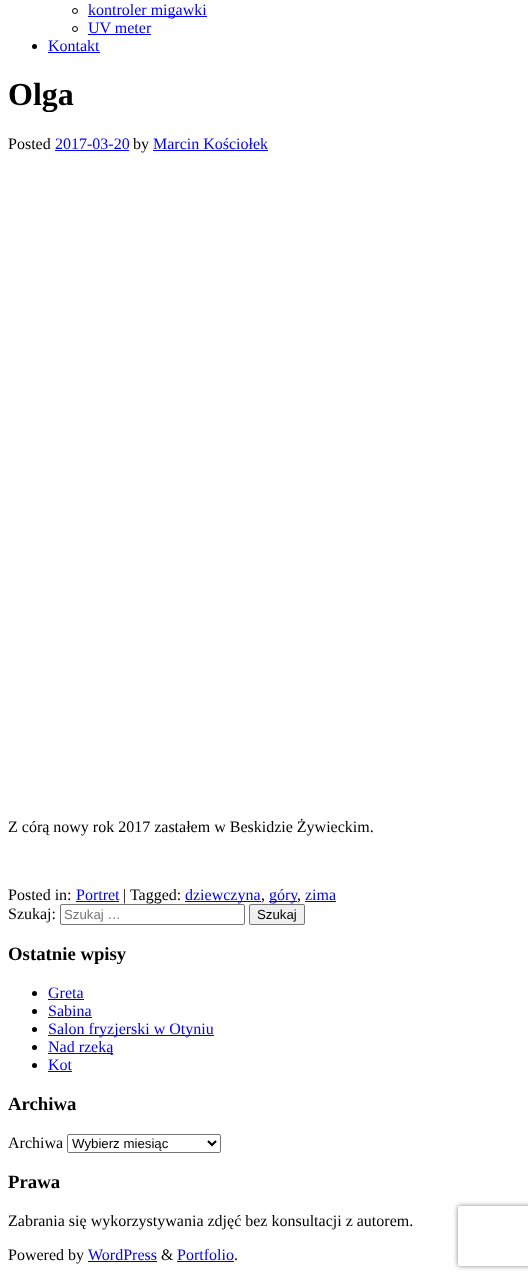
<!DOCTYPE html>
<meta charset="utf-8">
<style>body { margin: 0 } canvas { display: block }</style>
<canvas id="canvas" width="528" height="1280"></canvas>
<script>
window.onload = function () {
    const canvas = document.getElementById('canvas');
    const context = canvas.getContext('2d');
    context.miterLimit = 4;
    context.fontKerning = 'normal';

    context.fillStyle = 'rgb(255, 255, 255)';
    context.fillRect(0, 0, 528, 1280);
    context.beginPath();
    context.arc(75, 11, 2.5, 0, 2 * Math.PI);
    context.strokeStyle = 'rgb(0, 0, 0)';
    context.stroke();
    context.fillStyle = 'rgb(0, 0, 238)';
    context.fillRect(88, 16, 119, 1);
    context.beginPath();
    context.arc(75, 29, 2.5, 0, 2 * Math.PI);
    context.stroke();
    context.fillRect(88, 34, 63, 1);
    context.fillStyle = 'rgb(0, 0, 0)';
    context.beginPath();
    context.arc(34.5, 46.5, 2.5, 0, 2 * Math.PI);
    context.fill();
    context.fillStyle = 'rgb(0, 0, 238)';
    context.fillRect(48, 52, 52, 1);
    context.fillRect(55, 150, 74, 1);
    context.fillRect(153, 150, 115, 1);
    context.fillRect(76, 901, 43, 1);
    context.fillRect(185, 901, 76, 1);
    context.fillRect(269, 901, 28, 1);
    context.fillRect(305, 901, 31, 1);
    context.beginPath();
    context.roundRect(60.5, 904.5, 184, 20, 1.5);
    context.strokeStyle = 'rgb(118, 118, 118)';
    context.stroke();
    context.fillStyle = 'rgb(239, 239, 239)';
    context.beginPath();
    context.roundRect(249.5, 904.5, 55, 20, 1.5);
    context.fill();
    context.stroke();
    context.fillStyle = 'rgb(0, 0, 0)';
    context.beginPath();
    context.arc(34.5, 993.5, 2.5, 0, 2 * Math.PI);
    context.fill();
    context.fillStyle = 'rgb(0, 0, 238)';
    context.fillRect(48, 999, 36, 1);
    context.fillStyle = 'rgb(0, 0, 0)';
    context.beginPath();
    context.arc(34.5, 1011.5, 2.5, 0, 2 * Math.PI);
    context.fill();
    context.fillStyle = 'rgb(0, 0, 238)';
    context.fillRect(48, 1017, 44, 1);
    context.fillStyle = 'rgb(0, 0, 0)';
    context.beginPath();
    context.arc(34.5, 1029.5, 2.5, 0, 2 * Math.PI);
    context.fill();
    context.fillStyle = 'rgb(0, 0, 238)';
    context.fillRect(48, 1035, 166, 1);
    context.fillStyle = 'rgb(0, 0, 0)';
    context.beginPath();
    context.arc(34.5, 1047.5, 2.5, 0, 2 * Math.PI);
    context.fill();
    context.fillStyle = 'rgb(0, 0, 238)';
    context.fillRect(48, 1053, 65, 1);
    context.fillStyle = 'rgb(0, 0, 0)';
    context.beginPath();
    context.arc(34.5, 1065.5, 2.5, 0, 2 * Math.PI);
    context.fill();
    context.fillStyle = 'rgb(0, 0, 238)';
    context.fillRect(48, 1071, 24, 1);
    context.beginPath();
    context.roundRect(67.5, 1134.5, 153, 18, 1.5);
    context.stroke();
    context.beginPath();
    context.moveTo(208, 1141);
    context.lineTo(212, 1145);
    context.lineTo(216, 1141);
    context.strokeStyle = 'rgb(0, 0, 0)';
    context.lineWidth = 2;
    context.stroke();
    context.fillRect(88, 1261, 69, 1);
    context.fillRect(177, 1261, 57, 1);
    context.save();
    context.beginPath();
    context.moveTo(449, 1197);
    context.lineTo(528, 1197);
    context.lineTo(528, 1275);
    context.lineTo(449, 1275);
    context.closePath();
    context.moveTo(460, 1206);
    context.lineTo(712, 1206);
    context.bezierCurveTo(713, 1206, 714, 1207, 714, 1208);
    context.lineTo(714, 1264);
    context.bezierCurveTo(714, 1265, 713, 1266, 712, 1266);
    context.lineTo(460, 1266);
    context.bezierCurveTo(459, 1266, 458, 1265, 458, 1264);
    context.lineTo(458, 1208);
    context.bezierCurveTo(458, 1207, 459, 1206, 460, 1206);
    context.closePath();
    context.clip('evenodd');
    context.fillStyle = 'rgb(128, 128, 128)';
    context.filter = 'blur(2.5px)';
    context.beginPath();
    context.roundRect(458, 1206, 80, 60, 2);
    context.fill();
    context.filter = 'none';
    context.restore();
    context.font = '16px Liberation Serif';
    context.fillText('kontroler migawki', 88, 15);
    context.fillText('UV meter', 88, 33);
    context.fillText('Kontakt', 48, 51);
    context.font = 'bold 32px Liberation Serif';
    context.fillStyle = 'rgb(0, 0, 0)';
    context.fillText('Olga', 8, 105);
    context.font = '16px Liberation Serif';
    context.fillText('Posted', 8, 149);
    context.fillStyle = 'rgb(0, 0, 238)';
    context.fillText('2017-03-20', 55, 149);
    context.fillStyle = 'rgb(0, 0, 0)';
    context.fillText('by', 133, 149);
    context.fillStyle = 'rgb(0, 0, 238)';
    context.fillText('Marcin Kościołek', 153, 149);
    context.fillStyle = 'rgb(0, 0, 0)';
    context.fillText('Z córą nowy rok 2017 zastałem w Beskidzie Żywieckim.', 8, 832);
    context.fillText('Posted in:', 8, 900);
    context.fillStyle = 'rgb(0, 0, 238)';
    context.fillText('Portret', 76, 900);
    context.fillStyle = 'rgb(0, 0, 0)';
    context.fillText('| Tagged:', 123, 900);
    context.fillStyle = 'rgb(0, 0, 238)';
    context.fillText('dziewczyna', 185, 900);
    context.fillStyle = 'rgb(0, 0, 0)';
    context.fillText(',', 261, 900);
    context.fillStyle = 'rgb(0, 0, 238)';
    context.fillText('góry', 269, 900);
    context.fillText('zima', 305, 900);
    context.fillStyle = 'rgb(0, 0, 0)';
    context.fillText(',', 297, 900);
    context.fillText('Szukaj:', 8, 919);
    context.font = '13.25px Liberation Sans';
    context.fillStyle = 'rgb(117, 117, 117)';
    context.fillText('Szukaj …', 64, 919);
    context.fillStyle = 'rgb(0, 0, 0)';
    context.fillText('Szukaj', 257, 919);
    context.font = 'bold 18.75px Liberation Serif';
    context.fillText('Ostatnie wpisy', 8, 960);
    context.font = '16px Liberation Serif';
    context.fillStyle = 'rgb(0, 0, 238)';
    context.fillText('Greta', 48, 998);
    context.fillText('Sabina', 48, 1016);
    context.fillText('Salon fryzjerski w Otyniu', 48, 1034);
    context.fillText('Nad rzeką', 48, 1052);
    context.fillText('Kot', 48, 1070);
    context.font = 'bold 18.75px Liberation Serif';
    context.fillStyle = 'rgb(0, 0, 0)';
    context.fillText('Archiwa', 8, 1110);
    context.font = '16px Liberation Serif';
    context.fillText('Archiwa', 8, 1148);
    context.font = '13.25px Liberation Sans';
    context.fillText('Wybierz miesiąc', 72, 1148);
    context.font = 'bold 18.75px Liberation Serif';
    context.fillText('Prawa', 8, 1188);
    context.font = '16px Liberation Serif';
    context.fillText('Zabrania się wykorzystywania zdjęć bez konsultacji z autorem.', 8, 1226);
    context.fillText('Powered by', 8, 1260);
    context.fillStyle = 'rgb(0, 0, 238)';
    context.fillText('WordPress', 88, 1260);
    context.fillStyle = 'rgb(0, 0, 0)';
    context.fillText('&', 161, 1260);
    context.fillStyle = 'rgb(0, 0, 238)';
    context.fillText('Portfolio', 177, 1260);
    context.fillStyle = 'rgb(0, 0, 0)';
    context.fillText('.', 234, 1260);
};
</script>
